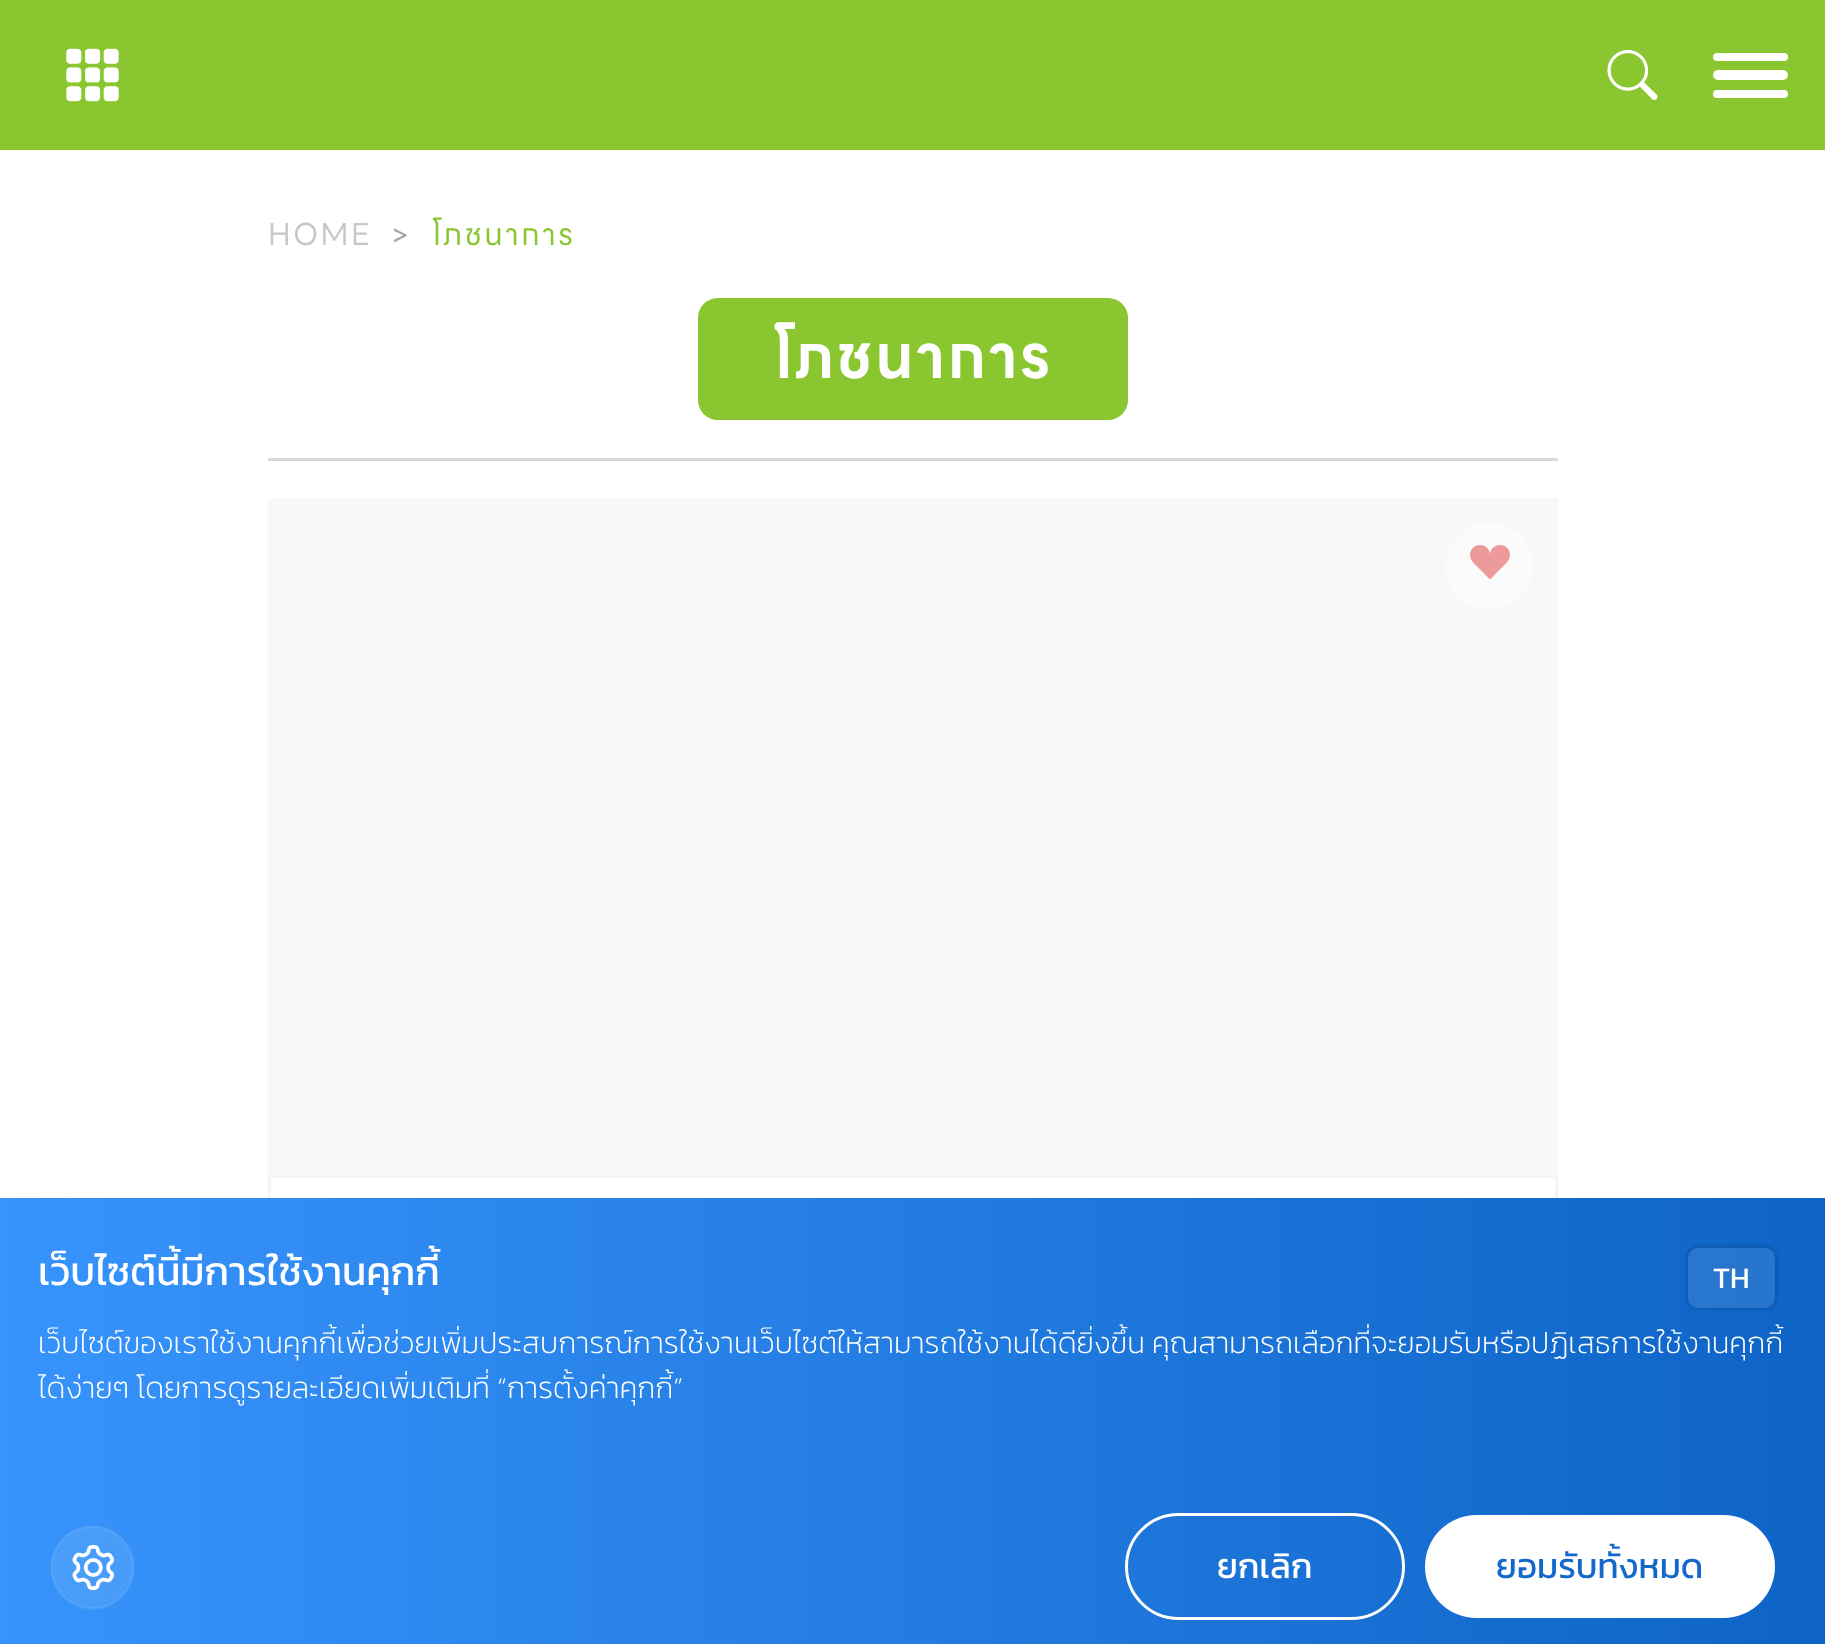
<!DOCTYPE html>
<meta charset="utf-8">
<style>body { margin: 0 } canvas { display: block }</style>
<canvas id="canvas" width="1825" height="1644"></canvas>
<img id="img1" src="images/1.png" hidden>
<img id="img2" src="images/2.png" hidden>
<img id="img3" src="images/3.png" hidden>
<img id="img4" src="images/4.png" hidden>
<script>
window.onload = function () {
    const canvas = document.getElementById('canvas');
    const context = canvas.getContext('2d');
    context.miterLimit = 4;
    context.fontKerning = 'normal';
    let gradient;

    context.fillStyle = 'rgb(255, 255, 255)';
    context.fillRect(0, 0, 1825, 1644);
    context.fillStyle = 'rgb(137, 198, 47)';
    context.fillRect(0, 0, 1825, 150);
    context.drawImage(document.getElementById('img1'), 66, 48, 53, 54);
    context.drawImage(document.getElementById('img2'), 1607, 50, 51, 50);
    context.fillStyle = 'rgb(255, 255, 255)';
    context.beginPath();
    context.roundRect(1713, 53, 75, 8, 4);
    context.fill();
    context.beginPath();
    context.roundRect(1713, 70, 75, 10, 5);
    context.fill();
    context.beginPath();
    context.roundRect(1713, 90, 75, 8, 4);
    context.fill();
    context.fillStyle = 'rgb(217, 217, 217)';
    context.fillRect(268, 458, 1290, 3);
    context.fillStyle = 'rgb(137, 198, 47)';
    context.beginPath();
    context.roundRect(698, 298, 430, 122, 20);
    context.fill();
    context.fillStyle = 'rgb(248, 248, 248)';
    context.fillRect(268, 498, 1290, 677);
    context.fillStyle = 'rgb(251, 251, 251)';
    context.beginPath();
    context.roundRect(1445, 523, 88, 87, 43.5);
    context.fill();
    context.drawImage(document.getElementById('img3'), 1470, 545, 40, 35);
    context.strokeStyle = 'rgb(245, 245, 245)';
    context.lineWidth = 3;
    context.strokeRect(269.5, 1176.5, 1287, 457);
    gradient = context.createLinearGradient(0, 1421, 1825, 1421);
    gradient.addColorStop(0, 'rgb(55, 148, 252)');
    gradient.addColorStop(1, 'rgb(14, 100, 198)');
    context.fillStyle = gradient;
    context.fillRect(0, 1198, 1825, 446);
    context.save();
    context.beginPath();
    context.moveTo(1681, 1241);
    context.lineTo(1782, 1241);
    context.lineTo(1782, 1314);
    context.lineTo(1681, 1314);
    context.closePath();
    context.moveTo(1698, 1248);
    context.lineTo(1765, 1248);
    context.bezierCurveTo(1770.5, 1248, 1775, 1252.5, 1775, 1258);
    context.lineTo(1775, 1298);
    context.bezierCurveTo(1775, 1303.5, 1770.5, 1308, 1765, 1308);
    context.lineTo(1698, 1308);
    context.bezierCurveTo(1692.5, 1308, 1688, 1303.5, 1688, 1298);
    context.lineTo(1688, 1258);
    context.bezierCurveTo(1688, 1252.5, 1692.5, 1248, 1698, 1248);
    context.closePath();
    context.clip('evenodd');
    context.fillStyle = 'rgba(0, 0, 0, 0.1)';
    context.filter = 'blur(1px)';
    context.beginPath();
    context.roundRect(1685, 1245, 93, 65, 13);
    context.fill();
    context.filter = 'none';
    context.restore();
    context.fillStyle = 'rgba(255, 255, 255, 0.1)';
    context.beginPath();
    context.roundRect(1688, 1248, 87, 60, 10);
    context.fill();
    context.drawImage(document.getElementById('img4'), 50, 1525, 85, 85);
    context.beginPath();
    context.roundRect(1126.5, 1514.5, 277, 104, 52);
    context.strokeStyle = 'rgb(255, 255, 255)';
    context.stroke();
    context.fillStyle = 'rgb(255, 255, 255)';
    context.beginPath();
    context.roundRect(1425, 1515, 350, 103, 51.5);
    context.fill();
    context.letterSpacing = '2.5px';
    context.font = '30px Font';
    context.fillStyle = 'rgb(199, 199, 199)';
    context.fillText('HOME', 268, 245);
    context.fillStyle = 'rgb(165, 165, 165)';
    context.fillText('>', 391, 245);
    context.fillStyle = 'rgb(137, 198, 47)';
    context.fillText('โภชนาการ', 432, 245);
    context.font = 'bold 60px Font';
    context.fillStyle = 'rgb(255, 255, 255)';
    context.fillText('โภชนาการ', 773, 378);
    context.letterSpacing = '0px';
    context.font = '40px Kanit';
    context.fillText('เว็บไซต์นี้มีการใช้งานคุกกี้', 38, 1285);
    context.font = '200 30px Kanit';
    context.fillText('เว็บไซต์ของเราใช้งานคุกกี้เพื่อช่วยเพิ่มประสบการณ์การใช้งานเว็บไซต์ให้สามารถใช้งานได้ดียิ่งขึ้น คุณสามารถเลือกที่จะยอมรับหรือปฏิเสธการใช้งานคุกกี้', 38, 1353);
    context.fillText('ได้ง่ายๆ โดยการดูรายละเอียดเพิ่มเติมที่ “การตั้งค่าคุกกี้”', 38, 1398);
    context.font = '30px Kanit';
    context.fillText('TH', 1713, 1288);
    context.font = '35px Kanit';
    context.fillText('ยกเลิก', 1217, 1578);
    context.fillStyle = 'rgb(18, 105, 203)';
    context.fillText('ยอมรับทั้งหมด', 1496, 1578);
};
</script>
